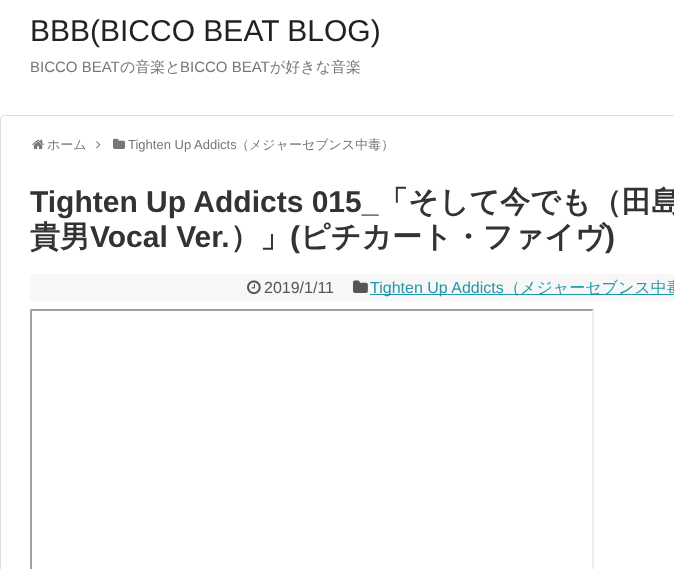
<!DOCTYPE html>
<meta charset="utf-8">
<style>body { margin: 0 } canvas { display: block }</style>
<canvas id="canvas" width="674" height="569"></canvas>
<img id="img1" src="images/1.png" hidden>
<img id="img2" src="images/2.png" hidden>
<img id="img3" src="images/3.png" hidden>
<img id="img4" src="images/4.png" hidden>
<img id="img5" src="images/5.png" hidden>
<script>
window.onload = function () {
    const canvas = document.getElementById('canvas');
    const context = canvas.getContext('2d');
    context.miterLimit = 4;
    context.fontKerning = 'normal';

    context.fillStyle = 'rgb(255, 255, 255)';
    context.fillRect(0, 0, 674, 569);
    context.beginPath();
    context.roundRect(0.5, 115.5, 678, 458, 3.5);
    context.strokeStyle = 'rgb(221, 221, 221)';
    context.stroke();
    context.drawImage(document.getElementById('img1'), 32, 139, 12, 10);
    context.drawImage(document.getElementById('img2'), 96, 141, 5, 8);
    context.drawImage(document.getElementById('img3'), 113, 138, 13, 11);
    context.fillStyle = 'rgb(247, 247, 247)';
    context.fillRect(30, 274, 644, 27);
    context.drawImage(document.getElementById('img4'), 247, 280, 14, 15);
    context.drawImage(document.getElementById('img5'), 353, 280, 15, 13);
    context.fillStyle = 'rgb(32, 152, 168)';
    context.fillRect(370, 294, 304, 1);
    context.fillStyle = 'rgb(159, 159, 159)';
    context.beginPath();
    context.moveTo(30, 309);
    context.lineTo(594, 309);
    context.lineTo(592, 311);
    context.lineTo(32, 311);
    context.closePath();
    context.fill();
    context.beginPath();
    context.moveTo(30, 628);
    context.lineTo(30, 309);
    context.lineTo(32, 311);
    context.lineTo(32, 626);
    context.closePath();
    context.fill();
    context.fillStyle = 'rgb(238, 238, 238)';
    context.beginPath();
    context.moveTo(594, 309);
    context.lineTo(594, 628);
    context.lineTo(592, 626);
    context.lineTo(592, 311);
    context.closePath();
    context.fill();
    context.font = '30px Liberation Sans';
    context.fillStyle = 'rgb(34, 34, 34)';
    context.fillText('BBB(BICCO BEAT BLOG)', 30, 41);
    context.font = '15px Liberation Sans';
    context.fillStyle = 'rgb(119, 119, 119)';
    context.fillText('BICCO BEAT', 30, 72);
    context.font = '500 15px WenQuanYi Zen Hei';
    context.fillText('の音楽と', 120, 72);
    context.font = '15px Liberation Sans';
    context.fillText('BICCO BEAT', 180, 72);
    context.font = '500 15px WenQuanYi Zen Hei';
    context.fillText('が好きな音楽', 270, 72);
    context.font = '500 13px WenQuanYi Zen Hei';
    context.fillText('ホーム', 47, 149);
    context.font = '13px Liberation Sans';
    context.fillText('Tighten Up Addicts', 128, 149);
    context.font = '500 13px WenQuanYi Zen Hei';
    context.fillText('（メジャーセブンス中毒）', 236, 149);
    context.font = 'bold 30px Liberation Sans';
    context.fillStyle = 'rgb(51, 51, 51)';
    context.fillText('Tighten Up Addicts 015_', 30, 212);
    context.font = 'bold 30px WenQuanYi Zen Hei';
    context.fillText('「そして今でも（田島', 378, 212);
    context.fillText('貴男', 30, 247);
    context.font = 'bold 30px Liberation Sans';
    context.fillText('Vocal Ver.', 90, 247);
    context.font = 'bold 30px WenQuanYi Zen Hei';
    context.fillText('）」', 230, 247);
    context.font = 'bold 30px Liberation Sans';
    context.fillText('(', 290, 247);
    context.font = 'bold 30px WenQuanYi Zen Hei';
    context.fillText('ピチカート・ファイヴ', 300, 247);
    context.font = 'bold 30px Liberation Sans';
    context.fillText(')', 605, 247);
    context.font = '16px Liberation Sans';
    context.fillStyle = 'rgb(85, 85, 85)';
    context.fillText('2019/1/11', 264, 293);
    context.fillStyle = 'rgb(32, 152, 168)';
    context.fillText('Tighten Up Addicts', 370, 293);
    context.font = '500 16px WenQuanYi Zen Hei';
    context.fillText('（メジャーセブンス中毒', 504, 293);
};
</script>
